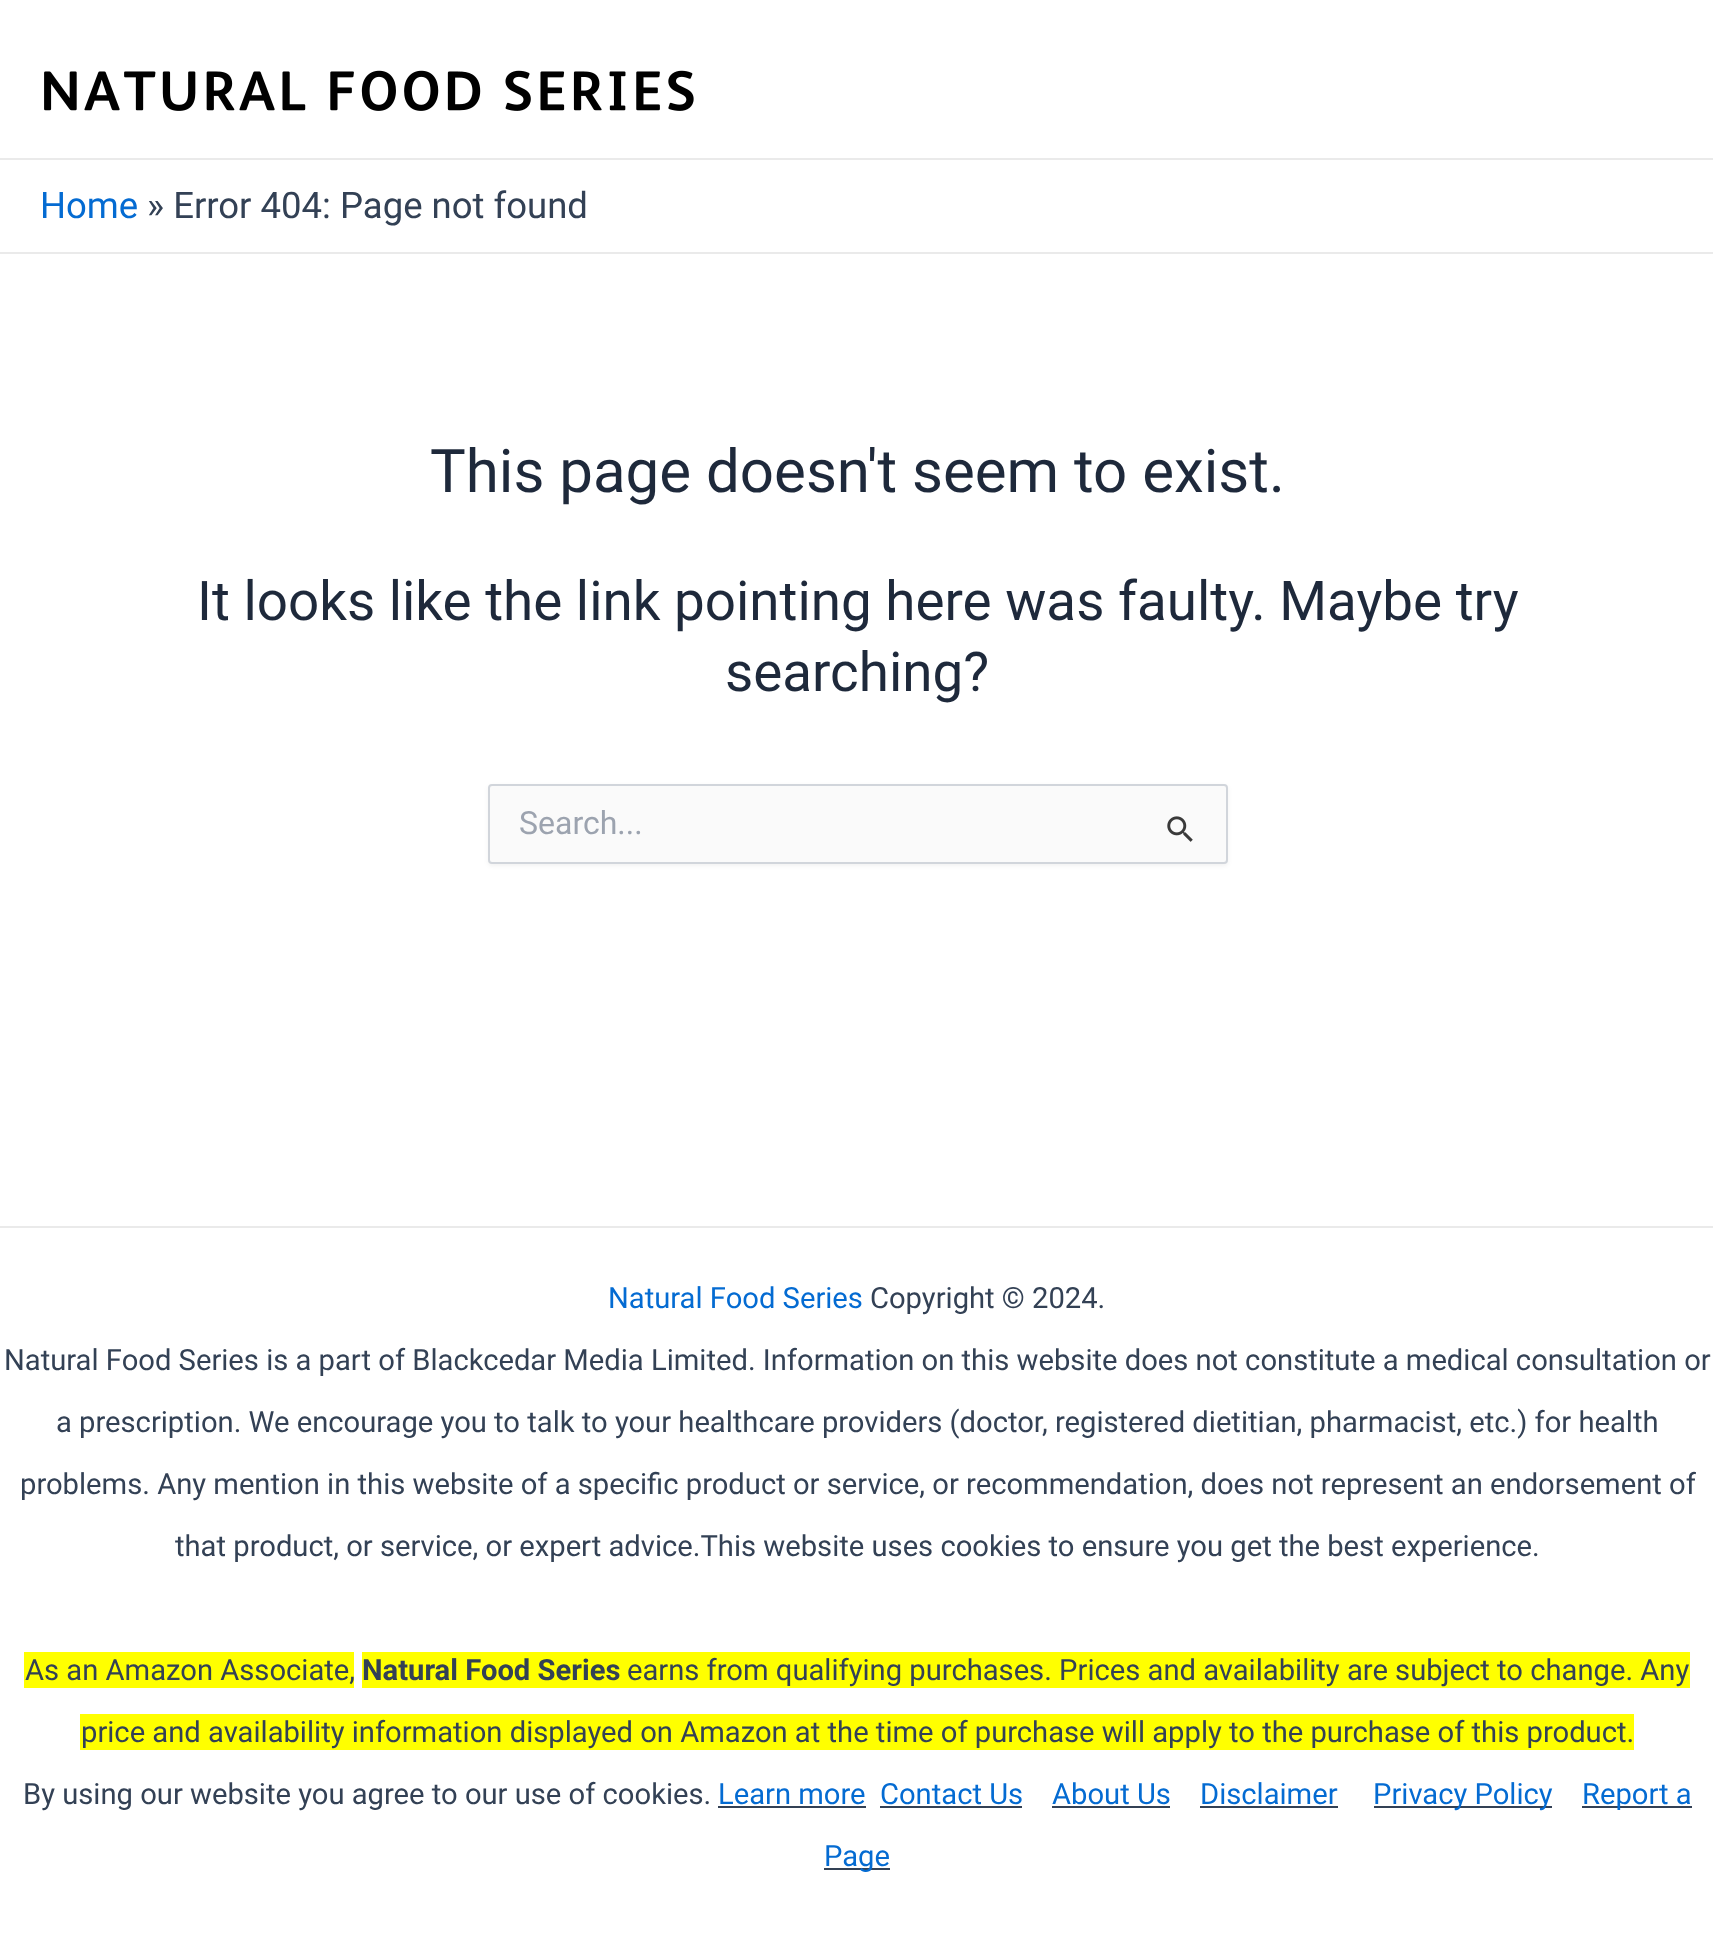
<!DOCTYPE html>
<meta charset="utf-8">
<style>body { margin: 0 } canvas { display: block }</style>
<canvas id="canvas" width="1713" height="1947"></canvas>
<img id="img1" src="images/1.png" hidden>
<img id="img2" src="images/2.png" hidden>
<script>
window.onload = function () {
    const canvas = document.getElementById('canvas');
    const context = canvas.getContext('2d');
    context.miterLimit = 4;
    context.fontKerning = 'normal';

    context.fillStyle = 'rgb(255, 255, 255)';
    context.fillRect(0, 0, 1713, 1947);
    context.fillStyle = 'rgb(234, 234, 234)';
    context.fillRect(0, 158, 1713, 2);
    context.drawImage(document.getElementById('img1'), 44, 70, 650, 41);
    context.fillRect(0, 252, 1713, 2);
    context.fillStyle = 'rgba(0, 0, 0, 0.05)';
    context.filter = 'blur(2px)';
    context.beginPath();
    context.roundRect(488, 786, 740, 80, 4);
    context.fill();
    context.filter = 'none';
    context.fillStyle = 'rgb(250, 250, 250)';
    context.beginPath();
    context.roundRect(489, 785, 738, 78, 3);
    context.fill();
    context.strokeStyle = 'rgb(209, 213, 219)';
    context.lineWidth = 2;
    context.stroke();
    context.drawImage(document.getElementById('img2'), 1167, 816, 26, 26);
    context.fillStyle = 'rgb(234, 234, 234)';
    context.fillRect(0, 1226, 1713, 2);
    context.fillStyle = 'rgb(255, 255, 0)';
    context.fillRect(24, 1652, 330, 36);
    context.fillRect(362, 1652, 1328, 36);
    context.fillRect(80, 1714, 1554, 36);
    context.fillStyle = 'rgb(51, 65, 85)';
    context.fillRect(718, 1806, 148, 2);
    context.fillRect(880, 1806, 142, 2);
    context.fillRect(1052, 1806, 118, 2);
    context.fillRect(1200, 1806, 138, 2);
    context.fillRect(1374, 1806, 178, 2);
    context.fillRect(1582, 1806, 110, 2);
    context.fillRect(824, 1868, 66, 2);
    context.font = '36.5px Roboto';
    context.fillStyle = 'rgb(4, 107, 210)';
    context.fillText('Home', 40, 218);
    context.fillStyle = 'rgb(51, 65, 85)';
    context.fillText('» Error 404: Page not found', 147, 218);
    context.font = '60px Roboto';
    context.fillStyle = 'rgb(30, 41, 59)';
    context.fillText('This page doesn\'t seem to exist.', 430, 492);
    context.font = '54.75px Roboto';
    context.fillText('It looks like the link pointing here was faulty. Maybe try', 197, 620);
    context.fillText('searching?', 725, 691);
    context.font = '32px Roboto';
    context.fillStyle = 'rgb(156, 163, 175)';
    context.fillText('Search...', 519, 834);
    context.font = '29.18px Roboto';
    context.fillStyle = 'rgb(4, 107, 210)';
    context.fillText('Natural Food Series', 608, 1308);
    context.fillStyle = 'rgb(51, 65, 85)';
    context.fillText('Copyright © 2024.', 870, 1308);
    context.fillText('Natural Food Series is a part of Blackcedar Media Limited. Information on this website does not constitute a medical consultation or', 4, 1370);
    context.fillText('a prescription. We encourage you to talk to your healthcare providers (doctor, registered dietitian, pharmacist, etc.) for health', 56, 1432);
    context.fillText('problems. Any mention in this website of a specific product or service, or recommendation, does not represent an endorsement of', 20, 1494);
    context.fillText('that product, or service, or expert advice.This website uses cookies to ensure you get the best experience.', 175, 1556);
    context.fillText('As an Amazon Associate,', 25, 1680);
    context.font = 'bold 29.18px Roboto';
    context.fillText('Natural Food Series', 362, 1680);
    context.font = '29.18px Roboto';
    context.fillText('earns from qualifying purchases. Prices and availability are subject to change. Any', 627, 1680);
    context.fillText('price and availability information displayed on Amazon at the time of purchase will apply to the purchase of this product.', 81, 1742);
    context.fillText('By using our website you agree to our use of cookies.', 23, 1804);
    context.fillStyle = 'rgb(4, 107, 210)';
    context.fillText('Learn more', 718, 1804);
    context.fillText('Contact Us', 880, 1804);
    context.fillText('About Us', 1052, 1804);
    context.fillText('Disclaimer', 1200, 1804);
    context.fillText('Privacy Policy', 1373, 1804);
    context.fillText('Report a', 1582, 1804);
    context.fillText('Page', 824, 1866);
};
</script>
